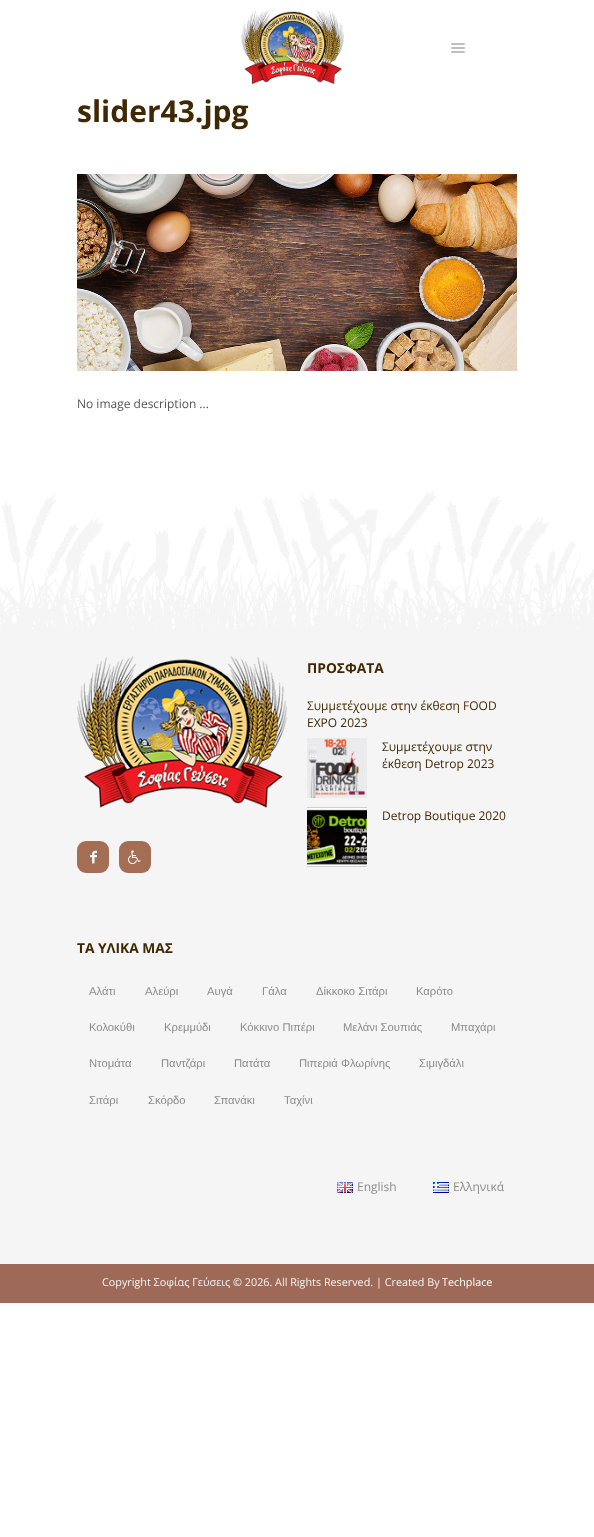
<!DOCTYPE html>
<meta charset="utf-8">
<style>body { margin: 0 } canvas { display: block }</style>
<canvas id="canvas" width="594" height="1537"></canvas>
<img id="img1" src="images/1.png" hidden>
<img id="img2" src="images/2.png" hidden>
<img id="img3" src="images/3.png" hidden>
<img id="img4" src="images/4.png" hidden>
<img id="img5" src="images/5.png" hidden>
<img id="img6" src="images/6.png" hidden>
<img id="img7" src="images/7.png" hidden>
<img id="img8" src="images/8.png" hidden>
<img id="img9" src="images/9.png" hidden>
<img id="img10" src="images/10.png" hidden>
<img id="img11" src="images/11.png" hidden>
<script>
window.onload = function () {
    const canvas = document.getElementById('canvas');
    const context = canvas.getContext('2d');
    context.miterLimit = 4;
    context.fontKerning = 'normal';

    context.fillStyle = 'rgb(255, 255, 255)';
    context.fillRect(0, 0, 594, 1537);
    context.drawImage(document.getElementById('img1'), 241, 10, 103, 75);
    context.drawImage(document.getElementById('img2'), 451, 43, 14, 10);
    context.drawImage(document.getElementById('img3'), 77, 174, 440, 197);
    context.fillStyle = 'rgb(245, 245, 245)';
    context.fillRect(0, 629, 594, 635);
    context.drawImage(document.getElementById('img4'), 0, 484, 594, 145);
    context.drawImage(document.getElementById('img5'), 77, 656, 210, 152);
    context.fillStyle = 'rgb(164, 110, 84)';
    context.beginPath();
    context.roundRect(77, 841, 32, 32, 9);
    context.fill();
    context.drawImage(document.getElementById('img6'), 90, 850, 7, 14);
    context.beginPath();
    context.roundRect(119, 841, 32, 32, 9);
    context.fill();
    context.drawImage(document.getElementById('img7'), 128, 850, 13, 15);
    context.drawImage(document.getElementById('img8'), 307, 738, 60, 60);
    context.drawImage(document.getElementById('img9'), 307, 807, 60, 60);
    context.fillStyle = 'rgb(244, 247, 249)';
    context.fillRect(77, 915, 460, 1);
    context.fillRect(307, 1151, 230, 1);
    context.drawImage(document.getElementById('img10'), 337, 1182, 16, 11);
    context.drawImage(document.getElementById('img11'), 433, 1182, 16, 11);
    context.fillStyle = 'rgb(158, 105, 87)';
    context.fillRect(0, 1264, 594, 39);
    context.font = 'bold 30px Open Sans';
    context.fillStyle = 'rgb(63, 40, 3)';
    context.fillText('slider43.jpg', 77, 122);
    context.font = '12px Open Sans';
    context.fillStyle = 'rgb(85, 85, 85)';
    context.fillText('No image description ...', 77, 408);
    context.font = 'bold 13.75px Open Sans';
    context.fillStyle = 'rgb(63, 40, 3)';
    context.fillText('ΠΡΟΣΦΑΤΑ', 307, 673);
    context.font = '12px Open Sans';
    context.fillText('Συμμετέχουμε στην έκθεση FOOD', 307, 710);
    context.fillText('EXPO 2023', 307, 727);
    context.fillText('Συμμετέχουμε στην', 382, 751);
    context.fillText('έκθεση Detrop 2023', 382, 768);
    context.fillText('Detrop Boutique 2020', 382, 820);
    context.font = 'bold 13.75px Open Sans';
    context.fillText('ΤΑ ΥΛΙΚΑ ΜΑΣ', 77, 953);
    context.font = '11.25px Liberation Sans';
    context.fillStyle = 'rgb(140, 140, 140)';
    context.fillText('Αλάτι', 89, 995);
    context.fillText('Αλεύρι', 145, 995);
    context.fillText('Αυγά', 207, 995);
    context.fillText('Γάλα', 262, 995);
    context.fillText('Δίκκοκο Σιτάρι', 316, 995);
    context.fillText('Καρότο', 416, 995);
    context.fillText('Κολοκύθι', 89, 1031);
    context.fillText('Κρεμμύδι', 164, 1031);
    context.fillText('Κόκκινο Πιπέρι', 240, 1031);
    context.fillText('Μελάνι Σουπιάς', 343, 1031);
    context.fillText('Μπαχάρι', 451, 1031);
    context.fillText('Ντομάτα', 89, 1067);
    context.fillText('Παντζάρι', 161, 1067);
    context.fillText('Πατάτα', 234, 1067);
    context.fillText('Πιπεριά Φλωρίνης', 299, 1067);
    context.fillText('Σιμιγδάλι', 419, 1067);
    context.fillText('Σιτάρι', 89, 1104);
    context.fillText('Σκόρδο', 148, 1104);
    context.fillText('Σπανάκι', 214, 1104);
    context.fillText('Ταχίνι', 284, 1104);
    context.font = '12px Open Sans';
    context.fillText('English', 357, 1191);
    context.fillText('Ελληνικά', 453, 1191);
    context.font = '10.8px Open Sans';
    context.fillStyle = 'rgb(245, 245, 245)';
    context.fillText('Copyright Σοφίας Γεύσεις © 2026. All Rights Reserved. | Created By', 102, 1286);
    context.fillStyle = 'rgb(255, 255, 255)';
    context.fillText('Techplace', 442, 1286);
};
</script>
